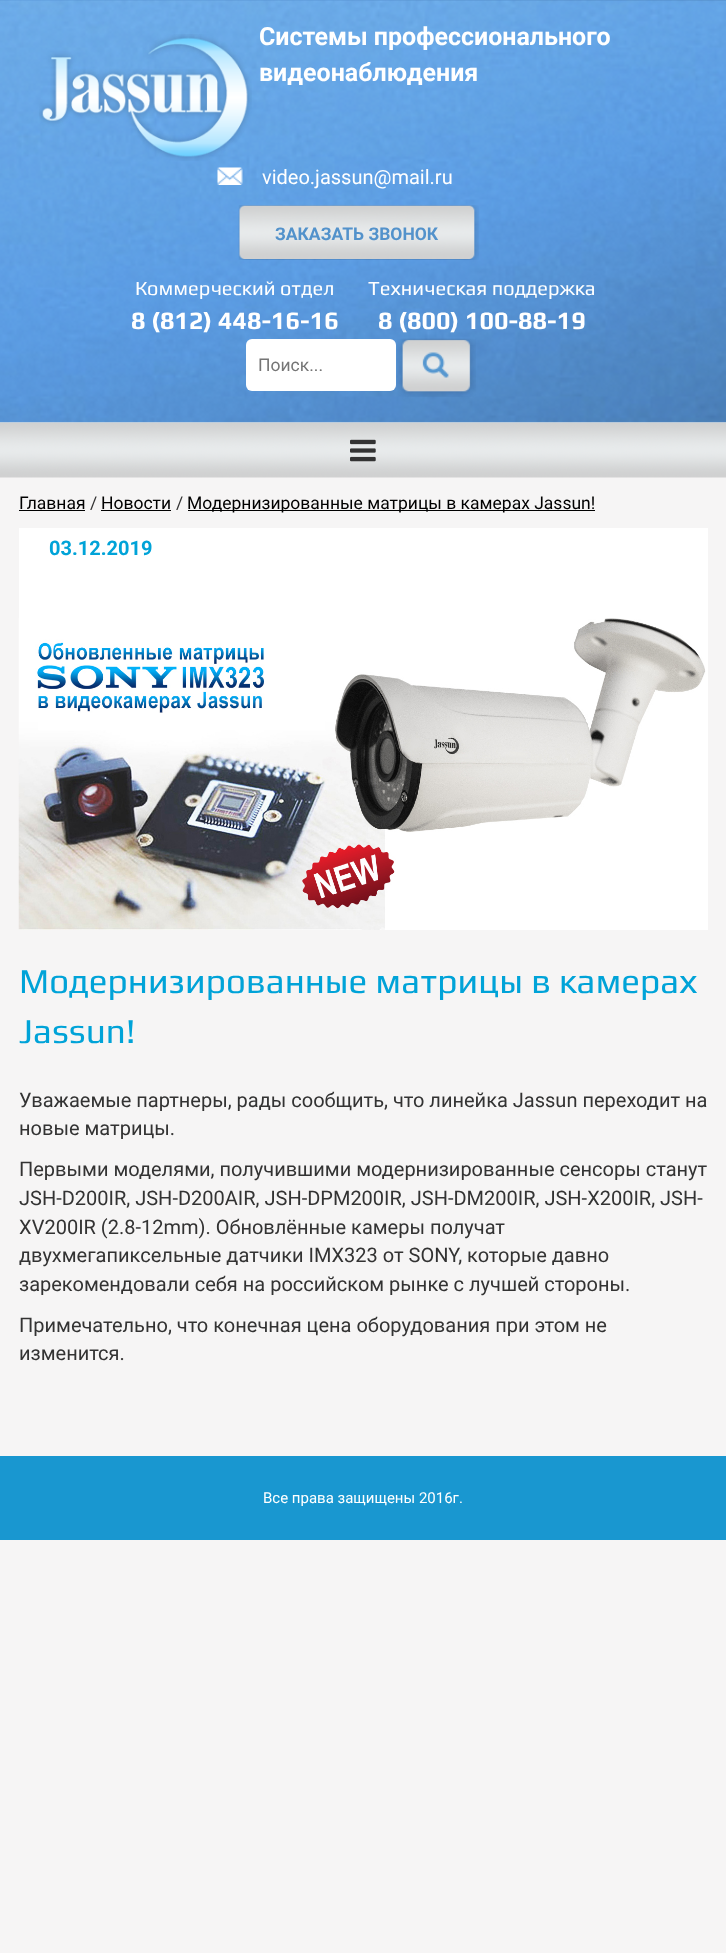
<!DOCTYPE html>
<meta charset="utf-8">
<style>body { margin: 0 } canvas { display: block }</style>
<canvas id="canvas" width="726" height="1953"></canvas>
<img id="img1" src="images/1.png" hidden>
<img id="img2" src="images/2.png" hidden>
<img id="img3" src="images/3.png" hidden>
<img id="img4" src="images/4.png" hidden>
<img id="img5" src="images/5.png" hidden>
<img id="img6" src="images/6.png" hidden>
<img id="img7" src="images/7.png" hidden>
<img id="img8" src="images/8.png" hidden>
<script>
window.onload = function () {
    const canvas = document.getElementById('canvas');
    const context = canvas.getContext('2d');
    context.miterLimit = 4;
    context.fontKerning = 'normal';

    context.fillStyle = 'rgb(246, 245, 245)';
    context.fillRect(0, 0, 726, 1953);
    context.drawImage(document.getElementById('img1'), 0, 0, 726, 423);
    context.drawImage(document.getElementById('img2'), 39, 34, 213, 127);
    context.drawImage(document.getElementById('img3'), 217, 167, 26, 18);
    context.drawImage(document.getElementById('img4'), 238, 205, 241, 55);
    context.fillStyle = 'rgb(255, 255, 255)';
    context.beginPath();
    context.roundRect(246, 339, 150, 52, 6);
    context.fill();
    context.drawImage(document.getElementById('img5'), 397, 338, 79, 59);
    context.drawImage(document.getElementById('img6'), 0, 422, 726, 56);
    context.drawImage(document.getElementById('img7'), 350, 439, 26, 23);
    context.fillStyle = 'rgb(0, 0, 0)';
    context.fillRect(19, 510, 66, 1);
    context.fillRect(101, 510, 70, 1);
    context.fillRect(188, 510, 407, 1);
    context.fillStyle = 'rgb(255, 255, 255)';
    context.fillRect(19, 528, 689, 402);
    context.drawImage(document.getElementById('img8'), 18, 618, 688, 312);
    context.fillStyle = 'rgb(25, 151, 208)';
    context.fillRect(0, 1456, 726, 84);
    context.font = 'bold 25px Roboto';
    context.fillStyle = 'rgb(255, 255, 255)';
    context.fillText('Системы профессионального', 259, 45);
    context.fillText('видеонаблюдения', 259, 81);
    context.font = '20px Roboto';
    context.fillText('video.jassun@mail.ru', 262, 184);
    context.font = 'bold 17.5px Roboto';
    context.fillStyle = 'rgb(83, 146, 203)';
    context.fillText('ЗАКАЗАТЬ ЗВОНОК', 275, 240);
    context.font = '20px Play';
    context.fillStyle = 'rgb(255, 255, 255)';
    context.fillText('Коммерческий отдел', 135, 295);
    context.font = 'bold 25px Play';
    context.fillText('8 (812) 448-16-16', 131, 329);
    context.font = '20px Play';
    context.fillText('Техническая поддержка', 368, 295);
    context.font = 'bold 25px Play';
    context.fillText('8 (800) 100-88-19', 378, 329);
    context.font = '17.5px Roboto';
    context.fillStyle = 'rgb(117, 117, 117)';
    context.fillText('Поиск...', 258, 371);
    context.fillStyle = 'rgb(0, 0, 0)';
    context.fillText('Главная', 19, 509);
    context.fillStyle = 'rgb(51, 51, 51)';
    context.fillText('/', 90, 509);
    context.fillStyle = 'rgb(0, 0, 0)';
    context.fillText('Новости', 101, 509);
    context.fillStyle = 'rgb(51, 51, 51)';
    context.fillText('/', 176, 509);
    context.fillStyle = 'rgb(0, 0, 0)';
    context.fillText('Модернизированные матрицы в камерах Jassun!', 187, 509);
    context.font = 'bold 20px Roboto';
    context.fillStyle = 'rgb(0, 163, 216)';
    context.fillText('03.12.2019', 49, 555);
    context.font = '35px Play';
    context.fillText('Модернизированные матрицы в камерах', 19, 993);
    context.fillText('Jassun!', 19, 1043);
    context.font = '20px Roboto';
    context.fillStyle = 'rgb(51, 51, 51)';
    context.fillText('Уважаемые партнеры, рады сообщить, что линейка Jassun переходит на', 19, 1107);
    context.fillText('новые матрицы.', 19, 1135);
    context.fillText('Первыми моделями, получившими модернизированные сенсоры станут', 19, 1176);
    context.fillText('JSH-D200IR, JSH-D200AIR, JSH-DPM200IR, JSH-DM200IR, JSH-X200IR, JSH-', 19, 1205);
    context.fillText('XV200IR (2.8-12mm). Обновлённые камеры получат', 19, 1234);
    context.fillText('двухмегапиксельные датчики IMX323 от SONY, которые давно', 19, 1262);
    context.fillText('зарекомендовали себя на российском рынке с лучшей стороны.', 19, 1291);
    context.fillText('Примечательно, что конечная цена оборудования при этом не', 19, 1332);
    context.fillText('изменится.', 19, 1360);
    context.font = '15px Roboto';
    context.fillStyle = 'rgb(255, 255, 255)';
    context.fillText('Все права защищены 2016г.', 263, 1503);
};
</script>
